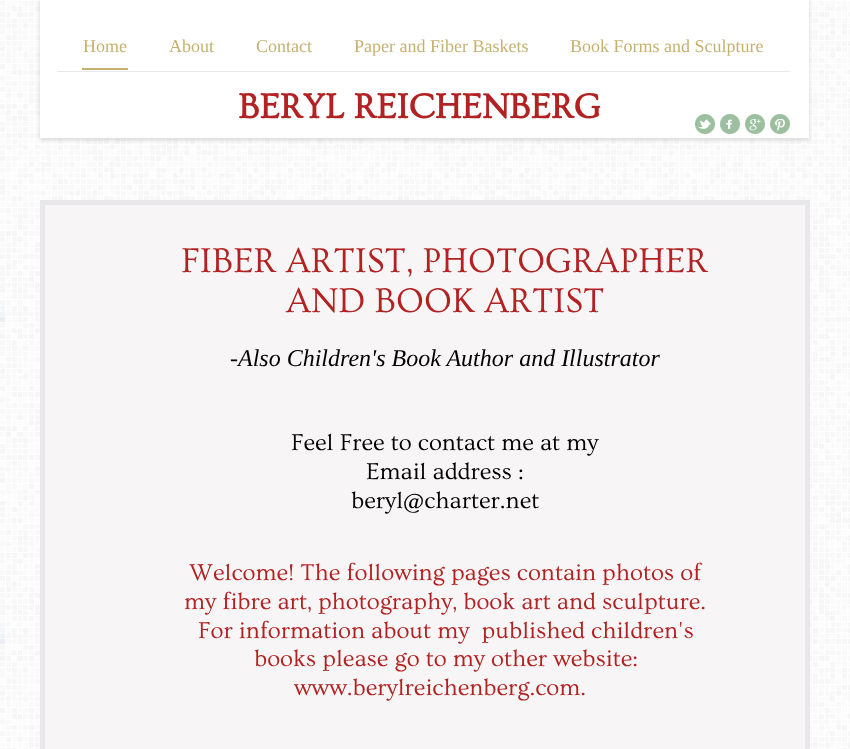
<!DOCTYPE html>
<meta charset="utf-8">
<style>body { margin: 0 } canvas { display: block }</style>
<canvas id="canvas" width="850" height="749"></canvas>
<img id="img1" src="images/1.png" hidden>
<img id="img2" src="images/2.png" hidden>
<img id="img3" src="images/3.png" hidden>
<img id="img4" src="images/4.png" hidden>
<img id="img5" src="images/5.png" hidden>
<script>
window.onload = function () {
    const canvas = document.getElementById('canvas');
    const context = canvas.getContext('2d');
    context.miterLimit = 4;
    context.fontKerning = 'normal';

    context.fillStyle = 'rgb(255, 255, 255)';
    context.fillRect(0, 0, 850, 749);
    context.drawImage(document.getElementById('img1'), 0, 0, 850, 749);
    context.fillStyle = 'rgb(247, 245, 246)';
    context.beginPath();
    context.rect(42.5, 202.5, 765, 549);
    context.fill();
    context.strokeStyle = 'rgb(232, 232, 234)';
    context.lineWidth = 5;
    context.stroke();
    context.fillStyle = 'rgba(0, 0, 0, 0.15)';
    context.filter = 'blur(2px)';
    context.beginPath();
    context.rect(40, -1, 769, 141);
    context.fill();
    context.filter = 'none';
    context.fillStyle = 'rgb(255, 255, 255)';
    context.fillRect(40, 0, 769, 138);
    context.fillStyle = 'rgb(232, 232, 234)';
    context.fillRect(57, 71, 733, 1);
    context.fillStyle = 'rgb(197, 177, 110)';
    context.fillRect(82, 68, 46, 2);
    context.drawImage(document.getElementById('img2'), 695, 114, 20, 20);
    context.drawImage(document.getElementById('img3'), 720, 114, 20, 20);
    context.drawImage(document.getElementById('img4'), 745, 114, 20, 20);
    context.drawImage(document.getElementById('img5'), 770, 114, 20, 20);
    context.font = '18px Liberation Serif';
    context.fillStyle = 'rgb(198, 177, 112)';
    context.fillText('Home', 83, 52);
    context.fillText('About', 169, 52);
    context.fillText('Contact', 256, 52);
    context.fillText('Paper and Fiber Baskets', 354, 52);
    context.fillText('Book Forms and Sculpture', 570, 52);
    context.font = 'bold 36px Ovo';
    context.fillStyle = 'rgb(178, 34, 34)';
    context.fillText('BERYL REICHENBERG', 238, 118);
    context.font = '36px Ovo';
    context.fillText('FIBER ARTIST, PHOTOGRAPHER', 181, 272);
    context.fillText('AND BOOK ARTIST', 286, 312);
    context.font = 'italic 24px Liberation Serif';
    context.fillStyle = 'rgb(0, 0, 0)';
    context.fillText('-Also Children\'s Book Author and Illustrator', 230, 366);
    context.font = '24px Ovo';
    context.fillText('Feel Free to contact me at my', 291, 450);
    context.fillText('Email address :', 366, 479);
    context.fillText('beryl@charter.net', 351, 508);
    context.fillStyle = 'rgb(178, 34, 34)';
    context.fillText('Welcome! The following pages contain photos of', 189, 580);
    context.fillText('my fibre art, photography, book art and sculpture.', 184, 609);
    context.fillText('For information about my  published children\'s', 198, 638);
    context.fillText('books please go to my other website:', 254, 666);
    context.fillText('www.berylreichenberg.com.', 294, 695);
};
</script>
